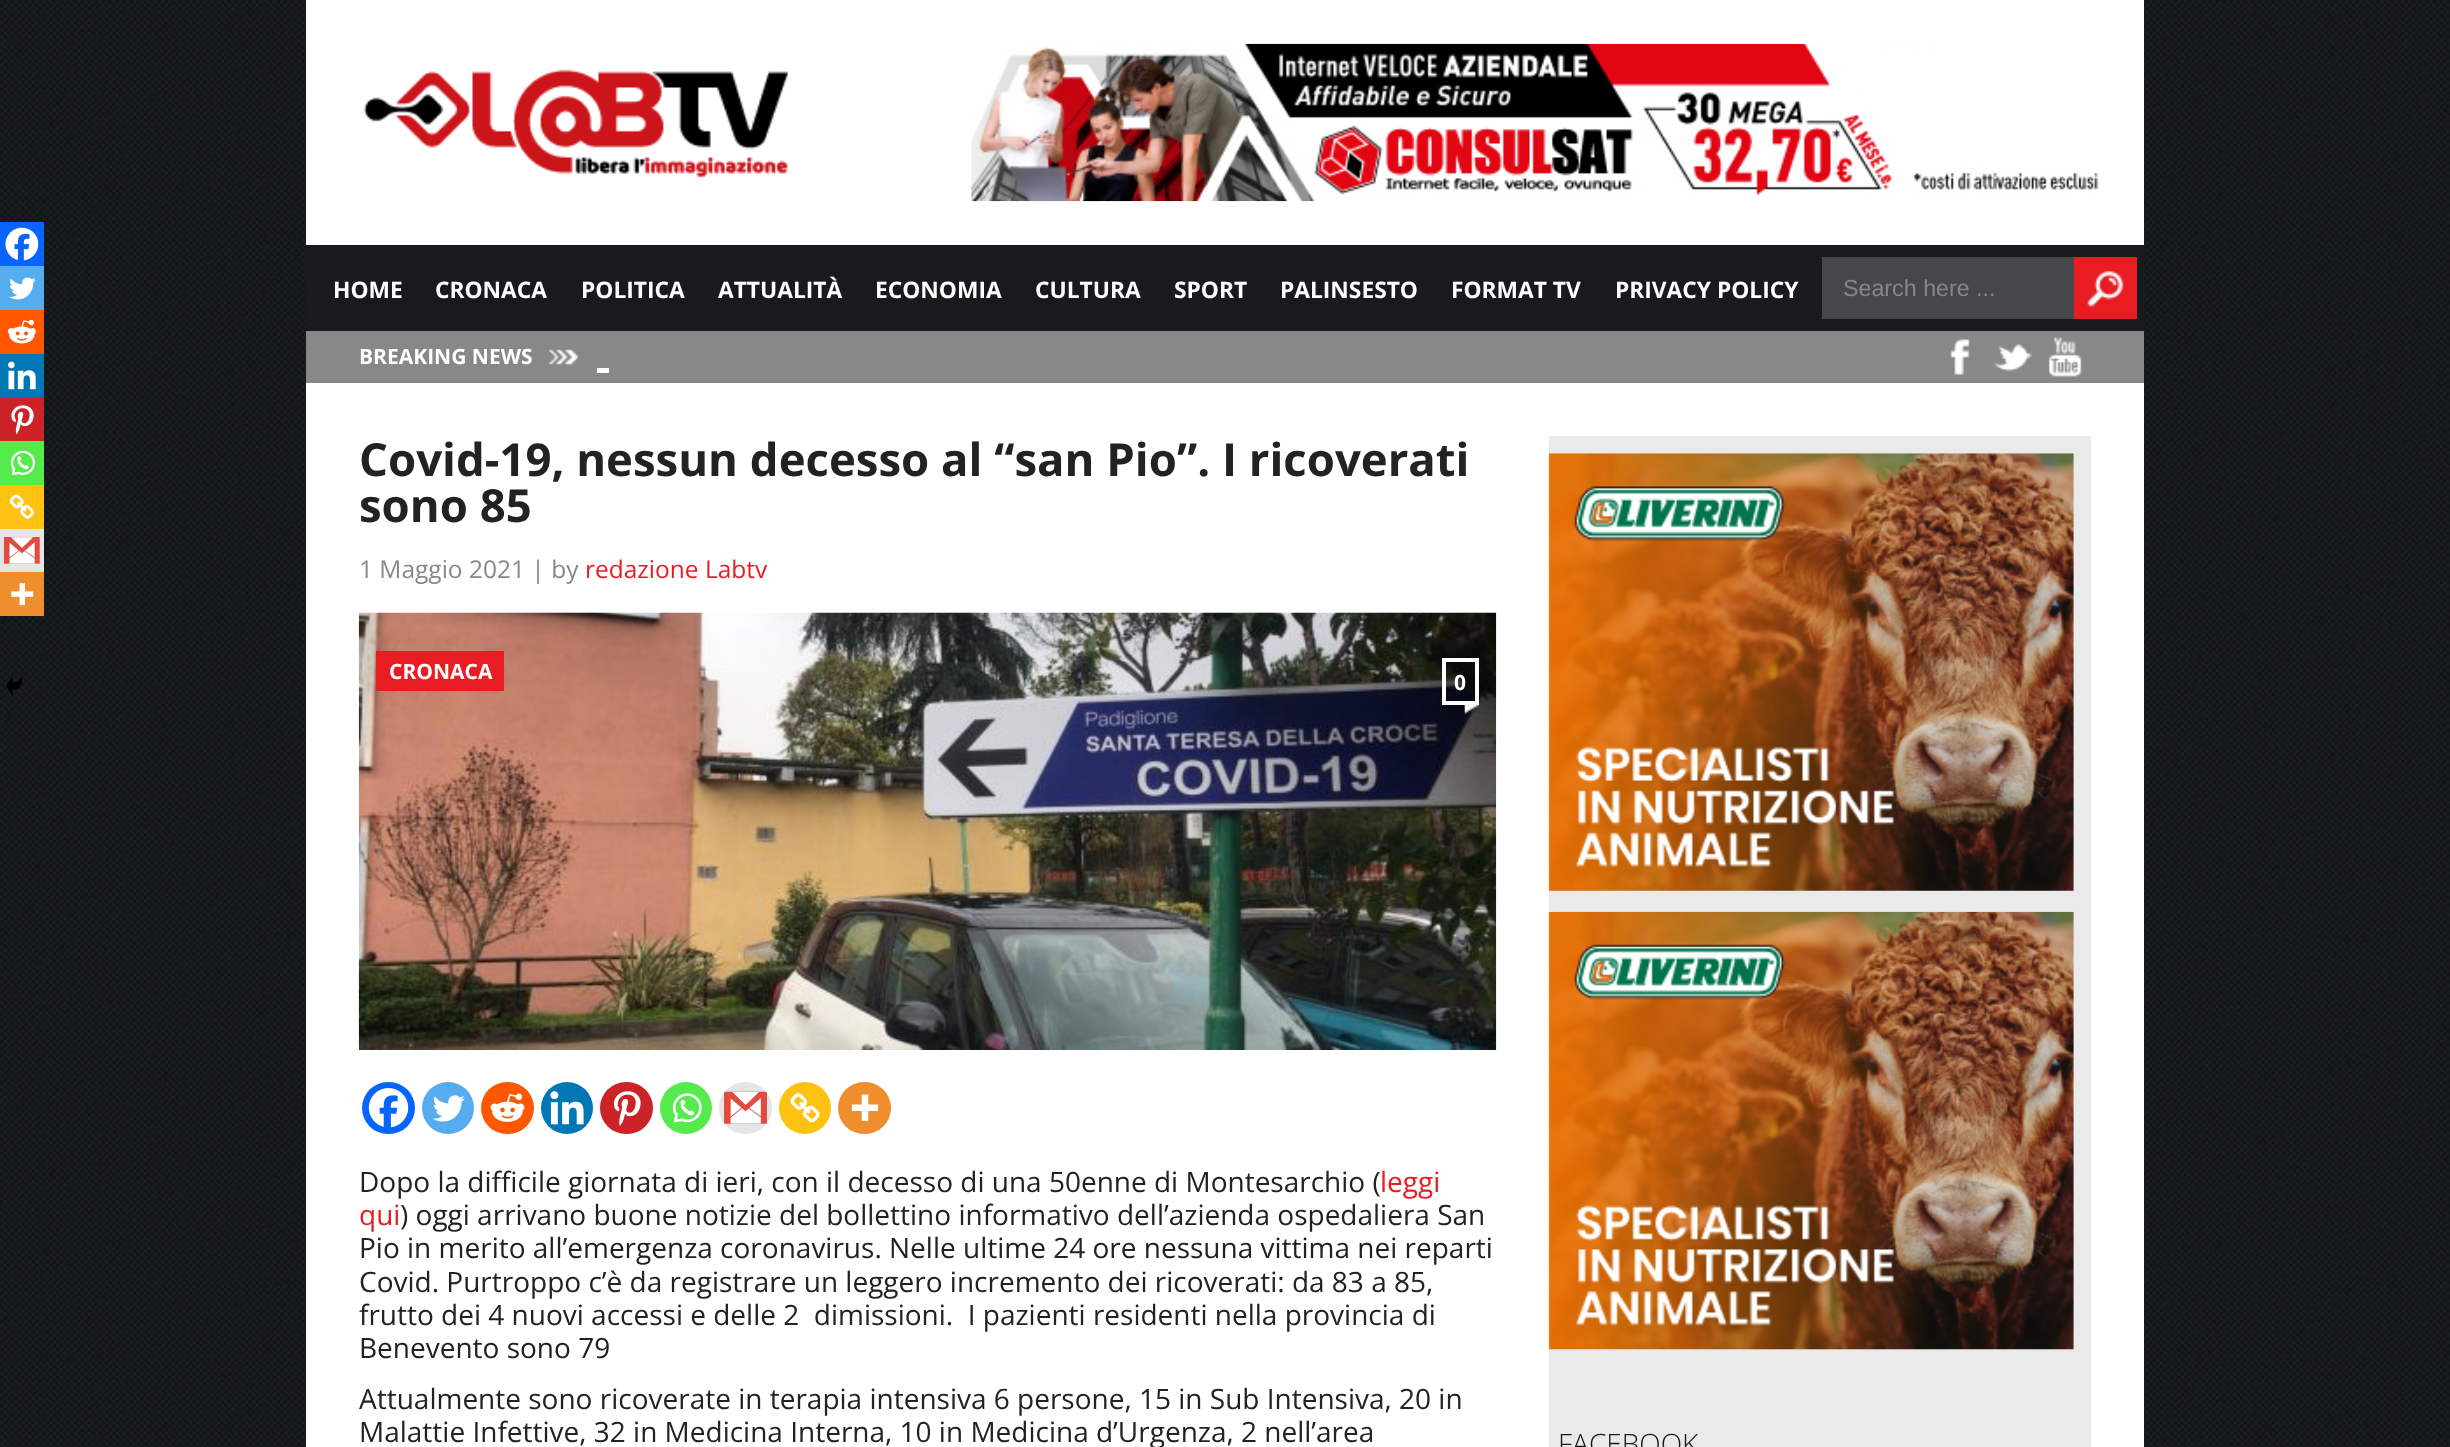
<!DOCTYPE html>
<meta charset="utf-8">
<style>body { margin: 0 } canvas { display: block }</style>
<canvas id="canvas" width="2450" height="1447"></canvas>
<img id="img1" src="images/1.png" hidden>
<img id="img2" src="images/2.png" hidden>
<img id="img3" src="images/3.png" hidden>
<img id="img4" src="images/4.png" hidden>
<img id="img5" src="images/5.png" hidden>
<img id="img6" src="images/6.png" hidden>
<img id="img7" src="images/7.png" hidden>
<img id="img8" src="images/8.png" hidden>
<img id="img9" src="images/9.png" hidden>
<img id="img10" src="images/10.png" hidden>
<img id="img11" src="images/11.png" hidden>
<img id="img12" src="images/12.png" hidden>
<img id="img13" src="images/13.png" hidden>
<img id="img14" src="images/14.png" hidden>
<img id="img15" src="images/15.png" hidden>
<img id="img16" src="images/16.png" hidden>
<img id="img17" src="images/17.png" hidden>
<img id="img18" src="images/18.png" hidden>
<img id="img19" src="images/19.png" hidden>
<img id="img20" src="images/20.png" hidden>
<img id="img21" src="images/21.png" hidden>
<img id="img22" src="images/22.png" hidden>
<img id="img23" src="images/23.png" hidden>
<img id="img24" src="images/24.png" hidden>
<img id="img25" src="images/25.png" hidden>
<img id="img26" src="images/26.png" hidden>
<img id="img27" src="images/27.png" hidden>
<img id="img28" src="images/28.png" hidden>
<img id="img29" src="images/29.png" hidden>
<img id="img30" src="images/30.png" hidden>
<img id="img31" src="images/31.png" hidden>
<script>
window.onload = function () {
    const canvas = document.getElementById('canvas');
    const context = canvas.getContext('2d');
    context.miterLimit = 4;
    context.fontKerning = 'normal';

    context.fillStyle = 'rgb(255, 255, 255)';
    context.fillRect(0, 0, 2450, 1447);
    context.drawImage(document.getElementById('img1'), 0, 0, 2450, 1447);
    context.fillRect(306, 0, 1838, 245);
    context.drawImage(document.getElementById('img2'), 363, 69, 427, 109);
    context.drawImage(document.getElementById('img3'), 971, 43, 1128, 159);
    context.fillStyle = 'rgb(25, 26, 30)';
    context.fillRect(306, 245, 1838, 86);
    context.fillStyle = 'rgb(68, 72, 75)';
    context.fillRect(1822, 257, 252, 62);
    context.fillStyle = 'rgb(233, 27, 35)';
    context.fillRect(2074, 257, 63, 62);
    context.drawImage(document.getElementById('img4'), 2087, 270, 37, 37);
    context.fillStyle = 'rgb(136, 136, 136)';
    context.fillRect(306, 331, 1838, 52);
    context.drawImage(document.getElementById('img5'), 549, 349, 29, 16);
    context.fillStyle = 'rgb(255, 255, 255)';
    context.fillRect(597, 368, 12, 5);
    context.drawImage(document.getElementById('img6'), 1950, 339, 20, 36);
    context.drawImage(document.getElementById('img7'), 1993, 343, 39, 29);
    context.drawImage(document.getElementById('img8'), 2048, 337, 34, 40);
    context.fillRect(306, 383, 1838, 1064);
    context.fillStyle = 'rgb(7, 101, 254)';
    context.fillRect(0, 222, 44, 44);
    context.drawImage(document.getElementById('img9'), 5, 227, 34, 34);
    context.fillStyle = 'rgb(85, 172, 238)';
    context.fillRect(0, 266, 44, 44);
    context.drawImage(document.getElementById('img10'), 9, 277, 27, 23);
    context.fillStyle = 'rgb(255, 87, 0)';
    context.fillRect(0, 310, 44, 44);
    context.drawImage(document.getElementById('img11'), 7, 319, 29, 25);
    context.fillStyle = 'rgb(0, 119, 181)';
    context.fillRect(0, 354, 44, 43);
    context.drawImage(document.getElementById('img12'), 8, 361, 28, 29);
    context.fillStyle = 'rgb(204, 35, 41)';
    context.fillRect(0, 397, 44, 44);
    context.drawImage(document.getElementById('img13'), 11, 405, 23, 30);
    context.fillStyle = 'rgb(85, 235, 76)';
    context.fillRect(0, 441, 44, 44);
    context.drawImage(document.getElementById('img14'), 10, 450, 25, 26);
    context.fillStyle = 'rgb(255, 193, 18)';
    context.fillRect(0, 485, 44, 44);
    context.drawImage(document.getElementById('img15'), 9, 494, 25, 25);
    context.fillStyle = 'rgb(229, 229, 229)';
    context.fillRect(0, 529, 44, 43);
    context.drawImage(document.getElementById('img16'), 3, 537, 37, 27);
    context.fillStyle = 'rgb(238, 142, 45)';
    context.fillRect(0, 572, 44, 44);
    context.drawImage(document.getElementById('img17'), 11, 583, 23, 23);
    context.drawImage(document.getElementById('img18'), 6, 676, 16, 20);
    context.drawImage(document.getElementById('img19'), 358, 612, 1139, 438);
    context.fillStyle = 'rgb(233, 27, 35)';
    context.fillRect(376, 651, 128, 40);
    context.drawImage(document.getElementById('img20'), 1464, 705, 15, 9);
    context.strokeStyle = 'rgb(255, 255, 255)';
    context.lineWidth = 4;
    context.strokeRect(1444, 660, 33, 43);
    context.fillStyle = 'rgb(7, 101, 254)';
    context.beginPath();
    context.roundRect(362, 1082, 53, 52, 26);
    context.fill();
    context.drawImage(document.getElementById('img21'), 368, 1088, 41, 40);
    context.fillStyle = 'rgb(85, 172, 238)';
    context.beginPath();
    context.arc(448, 1108, 26, 0, 2 * Math.PI);
    context.fill();
    context.drawImage(document.getElementById('img22'), 432, 1095, 33, 27);
    context.fillStyle = 'rgb(255, 87, 0)';
    context.beginPath();
    context.roundRect(481, 1082, 53, 52, 26);
    context.fill();
    context.drawImage(document.getElementById('img23'), 490, 1093, 35, 29);
    context.fillStyle = 'rgb(0, 119, 181)';
    context.beginPath();
    context.arc(567, 1108, 26, 0, 2 * Math.PI);
    context.fill();
    context.drawImage(document.getElementById('img24'), 550, 1091, 34, 34);
    context.fillStyle = 'rgb(204, 35, 41)';
    context.beginPath();
    context.roundRect(600, 1082, 53, 52, 26);
    context.fill();
    context.drawImage(document.getElementById('img25'), 613, 1091, 28, 35);
    context.fillStyle = 'rgb(85, 235, 76)';
    context.beginPath();
    context.arc(686, 1108, 26, 0, 2 * Math.PI);
    context.fill();
    context.drawImage(document.getElementById('img26'), 672, 1093, 30, 30);
    context.fillStyle = 'rgb(229, 229, 229)';
    context.beginPath();
    context.roundRect(719, 1082, 53, 52, 26);
    context.fill();
    context.drawImage(document.getElementById('img27'), 724, 1091, 43, 33);
    context.fillStyle = 'rgb(255, 193, 18)';
    context.beginPath();
    context.arc(805, 1108, 26, 0, 2 * Math.PI);
    context.fill();
    context.drawImage(document.getElementById('img28'), 790, 1093, 30, 30);
    context.fillStyle = 'rgb(238, 142, 45)';
    context.beginPath();
    context.roundRect(838, 1082, 53, 52, 26);
    context.fill();
    context.drawImage(document.getElementById('img29'), 851, 1094, 28, 27);
    context.fillStyle = 'rgb(234, 234, 234)';
    context.fillRect(1549, 436, 542, 1011);
    context.drawImage(document.getElementById('img30'), 1548, 453, 526, 438);
    context.drawImage(document.getElementById('img31'), 1548, 911, 526, 439);
    context.font = 'bold 22.75px Open Sans';
    context.fillStyle = 'rgb(255, 255, 255)';
    context.fillText('HOME', 333, 298);
    context.fillText('CRONACA', 435, 298);
    context.fillText('POLITICA', 581, 298);
    context.fillText('ATTUALITÀ', 718, 298);
    context.fillText('ECONOMIA', 875, 298);
    context.fillText('CULTURA', 1035, 298);
    context.fillText('SPORT', 1174, 298);
    context.fillText('PALINSESTO', 1280, 298);
    context.fillText('FORMAT TV', 1451, 298);
    context.fillText('PRIVACY POLICY', 1615, 298);
    context.font = '23.25px Liberation Sans';
    context.fillStyle = 'rgb(132, 136, 139)';
    context.fillText('Search here ...', 1843, 296);
    context.font = 'bold 21px Open Sans';
    context.fillStyle = 'rgb(255, 255, 255)';
    context.fillText('BREAKING NEWS', 359, 364);
    context.font = 'bold 45.5px Open Sans';
    context.fillStyle = 'rgb(34, 34, 34)';
    context.fillText('Covid-19, nessun decesso al “san Pio”. I ricoverati', 359, 476);
    context.fillText('sono 85', 359, 522);
    context.font = '24.5px Open Sans';
    context.fillStyle = 'rgb(132, 136, 139)';
    context.fillText('1 Maggio 2021 | by', 359, 578);
    context.fillStyle = 'rgb(233, 27, 35)';
    context.fillText('redazione Labtv', 585, 578);
    context.font = 'bold 21px Open Sans';
    context.fillStyle = 'rgb(255, 255, 255)';
    context.fillText('CRONACA', 389, 679);
    context.fillText('0', 1454, 690);
    context.font = '28px Open Sans';
    context.fillStyle = 'rgb(34, 34, 34)';
    context.fillText('Dopo la difficile giornata di ieri, con il decesso di una 50enne di Montesarchio (', 359, 1192);
    context.fillStyle = 'rgb(233, 27, 35)';
    context.fillText('leggi', 1380, 1192);
    context.fillText('qui', 359, 1225);
    context.fillStyle = 'rgb(34, 34, 34)';
    context.fillText(') oggi arrivano buone notizie del bollettino informativo dell’azienda ospedaliera San', 400, 1225);
    context.fillText('Pio in merito all’emergenza coronavirus. Nelle ultime 24 ore nessuna vittima nei reparti', 359, 1258);
    context.fillText('Covid. Purtroppo c’è da registrare un leggero incremento dei ricoverati: da 83 a 85,', 359, 1292);
    context.fillText('frutto dei 4 nuovi accessi e delle 2  dimissioni.  I pazienti residenti nella provincia di', 359, 1325);
    context.fillText('Benevento sono 79', 359, 1358);
    context.fillText('Attualmente sono ricoverate in terapia intensiva 6 persone, 15 in Sub Intensiva, 20 in', 359, 1409);
    context.fillText('Malattie Infettive, 32 in Medicina Interna, 10 in Medicina d’Urgenza, 2 nell’area', 359, 1442);
    context.font = '300 28px Open Sans';
    context.fillStyle = 'rgb(25, 26, 30)';
    context.fillText('FACEBOOK', 1558, 1454);
};
</script>
